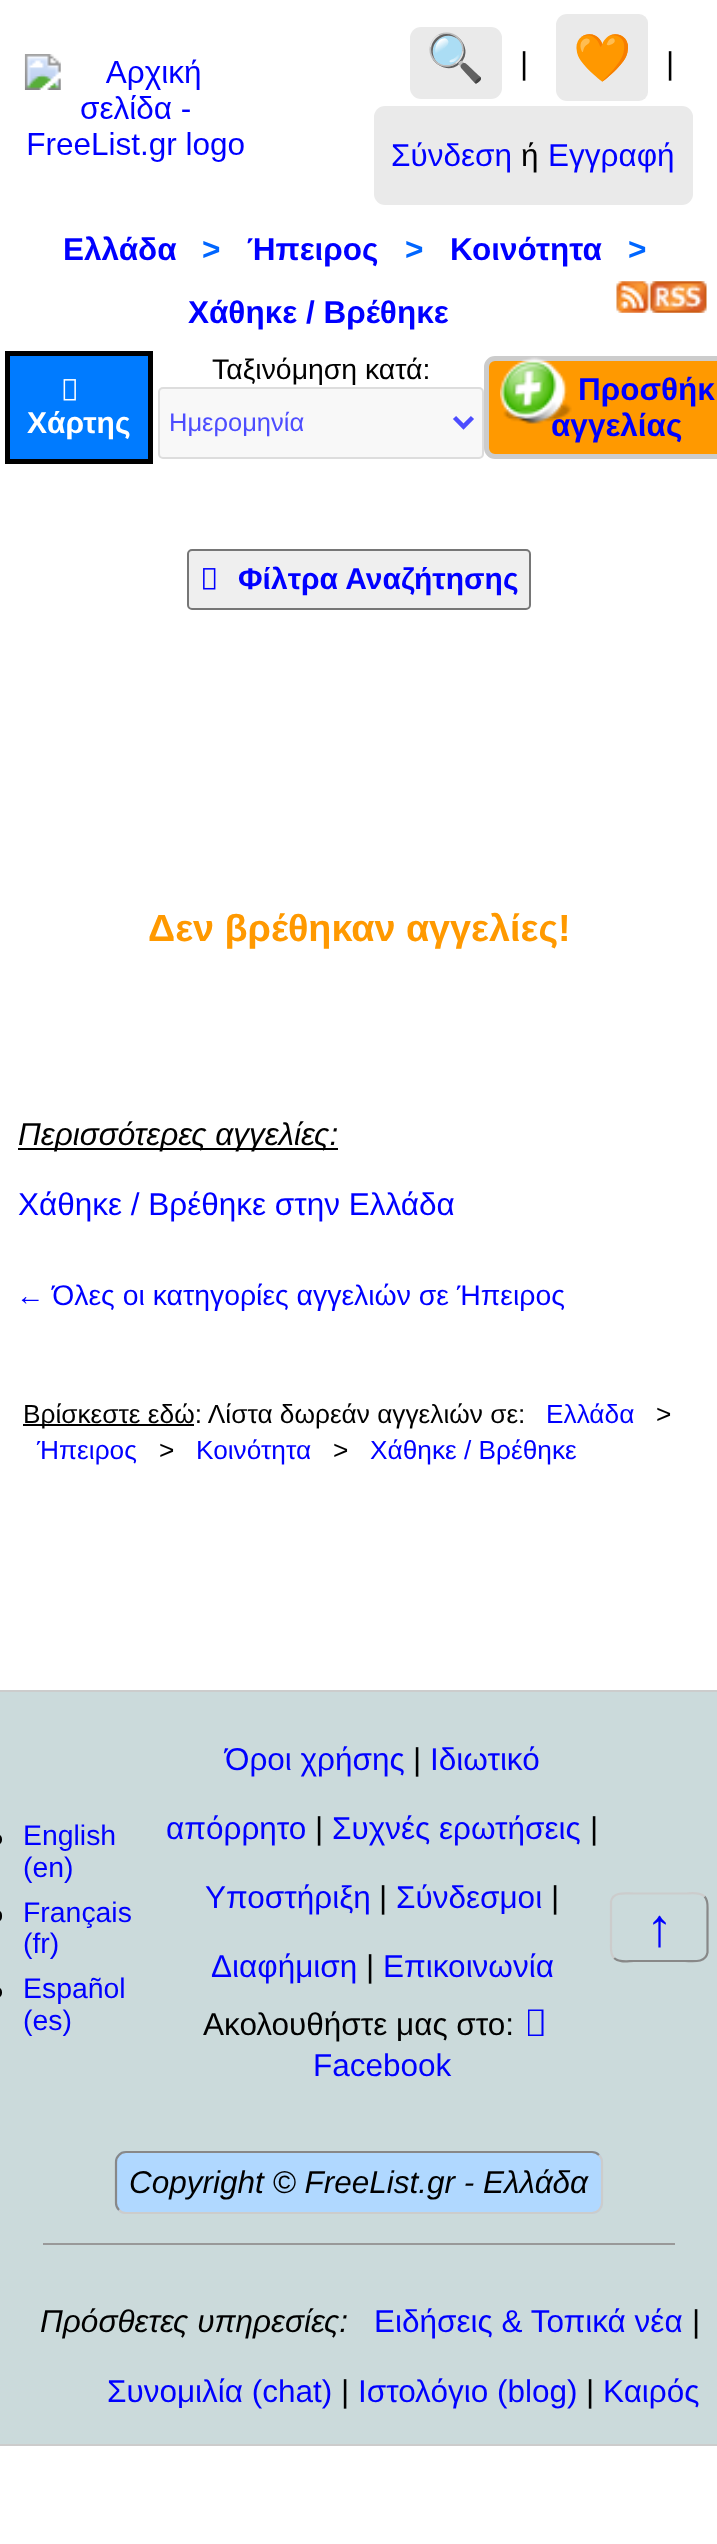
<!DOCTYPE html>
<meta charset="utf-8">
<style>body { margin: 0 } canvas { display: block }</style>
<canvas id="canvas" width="717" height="2544"></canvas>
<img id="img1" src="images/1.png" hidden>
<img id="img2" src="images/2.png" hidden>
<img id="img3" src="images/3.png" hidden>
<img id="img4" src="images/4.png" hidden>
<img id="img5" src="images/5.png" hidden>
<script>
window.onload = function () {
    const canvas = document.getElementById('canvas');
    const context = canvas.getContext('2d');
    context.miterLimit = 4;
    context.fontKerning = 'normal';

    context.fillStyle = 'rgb(255, 255, 255)';
    context.fillRect(0, 0, 717, 2544);
    context.drawImage(document.getElementById('img1'), 24, 54, 220, 108);
    context.fillStyle = 'rgb(234, 234, 234)';
    context.beginPath();
    context.roundRect(410, 27, 92, 72, 11);
    context.fill();
    context.beginPath();
    context.roundRect(556, 14, 74, 87, [11, 0, 0, 11]);
    context.fill();
    context.beginPath();
    context.roundRect(630, 14, 18, 87, [0, 9, 9, 0]);
    context.fill();
    context.beginPath();
    context.roundRect(374, 106, 319, 99, 11);
    context.fill();
    context.drawImage(document.getElementById('img2'), 616, 281, 91, 32);
    context.fillStyle = 'rgb(0, 123, 255)';
    context.beginPath();
    context.rect(7.5, 353.5, 143, 108);
    context.fill();
    context.strokeStyle = 'rgb(0, 0, 0)';
    context.lineWidth = 5;
    context.stroke();
    context.drawImage(document.getElementById('img3'), 63, 379, 13, 22);
    context.fillStyle = 'rgb(248, 248, 248)';
    context.beginPath();
    context.roundRect(158, 387, 326, 72, 5);
    context.fill();
    context.beginPath();
    context.roundRect(159, 388, 324, 70, 4);
    context.strokeStyle = 'rgba(159, 159, 159, 0.3)';
    context.lineWidth = 2;
    context.stroke();
    context.beginPath();
    context.moveTo(454.5, 417.5);
    context.lineTo(463.5, 426.5);
    context.lineTo(472.5, 417.5);
    context.strokeStyle = 'rgb(77, 77, 255)';
    context.lineWidth = 4.5;
    context.stroke();
    context.fillStyle = 'rgb(255, 153, 0)';
    context.beginPath();
    context.roundRect(486.5, 358.5, 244, 98, 8.5);
    context.fill();
    context.strokeStyle = 'rgb(204, 204, 204)';
    context.lineWidth = 5;
    context.stroke();
    context.drawImage(document.getElementById('img4'), 500, 357, 72, 67);
    context.fillStyle = 'rgb(239, 239, 239)';
    context.beginPath();
    context.roundRect(188, 550, 342, 59, 4);
    context.fill();
    context.strokeStyle = 'rgb(118, 118, 118)';
    context.lineWidth = 2;
    context.stroke();
    context.drawImage(document.getElementById('img5'), 203, 568, 13, 22);
    context.fillStyle = 'rgb(0, 0, 0)';
    context.fillRect(18, 1148, 320, 2);
    context.fillRect(23, 1424, 171, 2);
    context.fillStyle = 'rgb(203, 218, 219)';
    context.fillRect(0, 1692, 717, 752);
    context.fillStyle = 'rgb(204, 204, 204)';
    context.fillRect(0, 1690, 717, 2);
    context.fillRect(0, 2444, 717, 2);
    context.beginPath();
    context.roundRect(-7, 1835, 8, 9, 4.5);
    context.strokeStyle = 'rgb(0, 0, 0)';
    context.stroke();
    context.beginPath();
    context.roundRect(-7, 1911, 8, 10, 4.5);
    context.stroke();
    context.beginPath();
    context.roundRect(-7, 1988, 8, 9, 4.5);
    context.stroke();
    context.fillStyle = 'rgb(0, 0, 255)';
    context.beginPath();
    context.moveTo(528, 2036);
    context.lineTo(528, 2009.5);
    context.lineTo(543.5, 2009.5);
    context.lineTo(543.5, 2036);
    context.closePath();
    context.moveTo(529.5, 2034.5);
    context.lineTo(541.5, 2034.5);
    context.lineTo(541.5, 2011);
    context.lineTo(529.5, 2011);
    context.closePath();
    context.fill();
    context.beginPath();
    context.moveTo(704.5, 1896.5);
    context.bezierCurveTo(708.5, 1900.5, 707.5, 1906, 707.5, 1911.5);
    context.lineTo(707.5, 1952.5);
    context.bezierCurveTo(705.5, 1963.5, 692.5, 1961, 685, 1961);
    context.lineTo(634, 1961);
    context.bezierCurveTo(628, 1961, 619, 1963, 614, 1958);
    context.strokeStyle = 'rgb(136, 136, 136)';
    context.lineWidth = 2.2;
    context.stroke();
    context.beginPath();
    context.moveTo(614, 1958);
    context.bezierCurveTo(610, 1954, 611, 1948, 611, 1943);
    context.lineTo(611, 1901.5);
    context.bezierCurveTo(613, 1891, 626, 1893.5, 634, 1893.5);
    context.lineTo(685, 1893.5);
    context.bezierCurveTo(690.5, 1893.5, 699.5, 1891.5, 704.5, 1896.5);
    context.strokeStyle = 'rgb(204, 204, 204)';
    context.stroke();
    context.fillStyle = 'rgb(176, 216, 255)';
    context.beginPath();
    context.roundRect(115, 2151, 488, 63, 11);
    context.fill();
    context.beginPath();
    context.moveTo(599, 2155);
    context.bezierCurveTo(601, 2157, 602, 2159.5, 602, 2162);
    context.lineTo(602, 2203);
    context.bezierCurveTo(602, 2205.5, 601, 2208, 599, 2210);
    context.bezierCurveTo(597, 2212, 594.5, 2213, 592, 2213);
    context.lineTo(126, 2213);
    context.bezierCurveTo(123.5, 2213, 120.5, 2212, 119, 2210);
    context.stroke();
    context.beginPath();
    context.moveTo(119, 2210);
    context.bezierCurveTo(117, 2208, 116, 2205.5, 116, 2203);
    context.lineTo(116, 2162);
    context.bezierCurveTo(116, 2159.5, 117, 2157, 119, 2155);
    context.bezierCurveTo(120.5, 2153, 123.5, 2152, 126, 2152);
    context.lineTo(592, 2152);
    context.bezierCurveTo(594.5, 2152, 597, 2153, 599, 2155);
    context.strokeStyle = 'rgb(136, 136, 136)';
    context.stroke();
    context.fillStyle = 'rgb(153, 153, 153)';
    context.fillRect(43, 2243, 632, 2);
    context.font = '47px Noto Color Emoji';
    context.fillStyle = 'rgb(0, 0, 255)';
    context.fillText('🔍', 426, 74);
    context.font = '31.5px Liberation Sans';
    context.fillStyle = 'rgb(0, 0, 0)';
    context.fillText('|', 520, 74);
    context.font = '47px Noto Color Emoji';
    context.fillStyle = 'rgb(0, 0, 255)';
    context.fillText('🧡', 573, 74);
    context.font = '31.5px Liberation Sans';
    context.fillStyle = 'rgb(0, 0, 0)';
    context.fillText('|', 666, 74);
    context.fillStyle = 'rgb(0, 0, 255)';
    context.fillText('Σύνδεση', 391, 166);
    context.fillStyle = 'rgb(0, 0, 0)';
    context.fillText('ή', 521, 166);
    context.fillStyle = 'rgb(0, 0, 255)';
    context.fillText('Εγγραφή', 548, 166);
    context.font = 'bold 31.5px Liberation Sans';
    context.fillText('Ελλάδα', 63, 260);
    context.fillStyle = 'rgb(0, 102, 255)';
    context.fillText('>', 202, 260);
    context.fillStyle = 'rgb(0, 0, 255)';
    context.fillText('Ήπειρος', 247, 260);
    context.fillStyle = 'rgb(0, 102, 255)';
    context.fillText('>', 405, 260);
    context.fillStyle = 'rgb(0, 0, 255)';
    context.fillText('Κοινότητα', 450, 260);
    context.fillStyle = 'rgb(0, 102, 255)';
    context.fillText('>', 628, 260);
    context.fillStyle = 'rgb(0, 0, 255)';
    context.fillText('Χάθηκε / Βρέθηκε', 188, 323);
    context.font = 'bold 30px Liberation Sans';
    context.fillStyle = 'rgb(255, 255, 255)';
    context.fillText('Χάρτης', 27, 433);
    context.font = '28.4px Liberation Sans';
    context.fillStyle = 'rgb(0, 0, 0)';
    context.fillText('Ταξινόμηση κατά:', 212, 379);
    context.font = '25.5px Liberation Sans';
    context.fillStyle = 'rgb(77, 77, 255)';
    context.fillText('Ημερομηνία', 169, 431);
    context.font = 'bold 31.5px Liberation Sans';
    context.fillStyle = 'rgb(0, 0, 255)';
    context.fillText('Προσθήκ', 578, 400);
    context.fillText('αγγελίας', 551, 436);
    context.font = 'bold 30px Liberation Sans';
    context.fillText('Φίλτρα Αναζήτησης', 238, 589);
    context.font = 'bold 37.75px Liberation Sans';
    context.fillStyle = 'rgb(255, 153, 0)';
    context.fillText('Δεν βρέθηκαν αγγελίες!', 148, 941);
    context.font = 'italic 31.5px Liberation Sans';
    context.fillStyle = 'rgb(0, 0, 0)';
    context.fillText('Περισσότερες αγγελίες:', 18, 1145);
    context.font = '31.5px Liberation Sans';
    context.fillStyle = 'rgb(0, 0, 255)';
    context.fillText('Χάθηκε / Βρέθηκε στην Ελλάδα', 18, 1215);
    context.font = '28.4px Liberation Sans';
    context.fillText('← Όλες οι κατηγορίες αγγελιών σε Ήπειρος', 16, 1305);
    context.font = '26.25px Liberation Sans';
    context.fillStyle = 'rgb(0, 0, 0)';
    context.fillText('Βρίσκεστε εδώ: Λίστα δωρεάν αγγελιών σε:', 23, 1423);
    context.fillStyle = 'rgb(0, 0, 255)';
    context.fillText('Ελλάδα', 546, 1423);
    context.fillStyle = 'rgb(0, 0, 0)';
    context.fillText('>', 656, 1423);
    context.fillStyle = 'rgb(0, 0, 255)';
    context.fillText('Ήπειρος', 37, 1459);
    context.fillStyle = 'rgb(0, 0, 0)';
    context.fillText('>', 159, 1459);
    context.fillStyle = 'rgb(0, 0, 255)';
    context.fillText('Κοινότητα', 196, 1459);
    context.fillStyle = 'rgb(0, 0, 0)';
    context.fillText('>', 333, 1459);
    context.fillStyle = 'rgb(0, 0, 255)';
    context.fillText('Χάθηκε / Βρέθηκε', 370, 1459);
    context.font = '28.4px Liberation Sans';
    context.fillText('English', 23, 1845);
    context.fillText('(en)', 23, 1877);
    context.fillText('Français', 23, 1922);
    context.fillText('(fr)', 23, 1953);
    context.fillText('Español', 23, 1998);
    context.fillText('(es)', 23, 2030);
    context.font = '31.5px Liberation Sans';
    context.fillText('Όροι χρήσης', 225, 1770);
    context.fillStyle = 'rgb(0, 0, 0)';
    context.fillText('|', 413, 1770);
    context.fillStyle = 'rgb(0, 0, 255)';
    context.fillText('Ιδιωτικό', 430, 1770);
    context.fillText('απόρρητο', 166, 1839);
    context.fillStyle = 'rgb(0, 0, 0)';
    context.fillText('|', 315, 1839);
    context.fillStyle = 'rgb(0, 0, 255)';
    context.fillText('Συχνές ερωτήσεις', 332, 1839);
    context.fillStyle = 'rgb(0, 0, 0)';
    context.fillText('|', 590, 1839);
    context.fillStyle = 'rgb(0, 0, 255)';
    context.fillText('Υποστήριξη', 205, 1908);
    context.fillStyle = 'rgb(0, 0, 0)';
    context.fillText('|', 379, 1908);
    context.fillStyle = 'rgb(0, 0, 255)';
    context.fillText('Σύνδεσμοι', 396, 1908);
    context.fillStyle = 'rgb(0, 0, 0)';
    context.fillText('|', 551, 1908);
    context.fillStyle = 'rgb(0, 0, 255)';
    context.fillText('Διαφήμιση', 211, 1977);
    context.fillStyle = 'rgb(0, 0, 0)';
    context.fillText('|', 366, 1977);
    context.fillStyle = 'rgb(0, 0, 255)';
    context.fillText('Επικοινωνία', 383, 1977);
    context.fillStyle = 'rgb(0, 0, 0)';
    context.fillText('Ακολουθήστε μας στο:', 203, 2035);
    context.fillStyle = 'rgb(0, 0, 255)';
    context.fillText('Facebook', 313, 2076);
    context.font = 'bold 54px Liberation Sans';
    context.fillText('↑', 646, 1946);
    context.font = 'italic 31.5px Liberation Sans';
    context.fillStyle = 'rgb(0, 0, 0)';
    context.fillText('Copyright © FreeList.gr - Ελλάδα', 129, 2193);
    context.fillText('Πρόσθετες υπηρεσίες:', 40, 2332);
    context.font = '31.5px Liberation Sans';
    context.fillStyle = 'rgb(0, 0, 255)';
    context.fillText('Ειδήσεις & Τοπικά νέα', 374, 2332);
    context.fillStyle = 'rgb(0, 0, 0)';
    context.fillText('|', 692, 2332);
    context.fillStyle = 'rgb(0, 0, 255)';
    context.fillText('Συνομιλία (chat)', 107, 2402);
    context.fillStyle = 'rgb(0, 0, 0)';
    context.fillText('|', 341, 2402);
    context.fillStyle = 'rgb(0, 0, 255)';
    context.fillText('Ιστολόγιο (blog)', 358, 2402);
    context.fillStyle = 'rgb(0, 0, 0)';
    context.fillText('|', 586, 2402);
    context.fillStyle = 'rgb(0, 0, 255)';
    context.fillText('Καιρός', 603, 2402);
};
</script>
